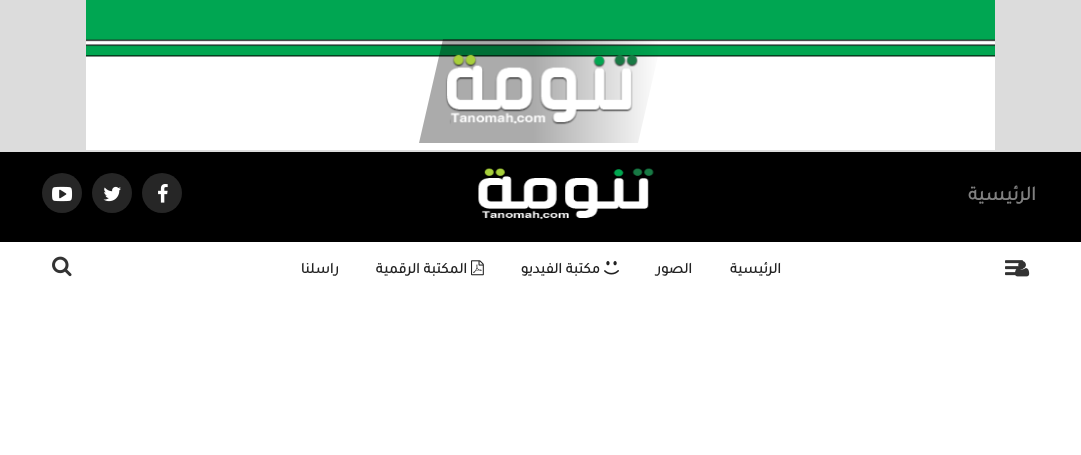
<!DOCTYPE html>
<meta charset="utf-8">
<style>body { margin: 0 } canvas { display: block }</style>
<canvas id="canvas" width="1081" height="455"></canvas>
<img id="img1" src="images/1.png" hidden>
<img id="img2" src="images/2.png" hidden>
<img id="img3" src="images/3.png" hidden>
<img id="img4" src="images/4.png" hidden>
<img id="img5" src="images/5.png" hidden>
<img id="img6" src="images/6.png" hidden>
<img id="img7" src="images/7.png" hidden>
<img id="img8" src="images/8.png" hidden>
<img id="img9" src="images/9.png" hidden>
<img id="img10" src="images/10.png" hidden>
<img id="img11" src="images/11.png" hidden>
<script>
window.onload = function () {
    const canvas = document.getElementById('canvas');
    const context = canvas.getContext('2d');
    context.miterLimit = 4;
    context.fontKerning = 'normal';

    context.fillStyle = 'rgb(255, 255, 255)';
    context.fillRect(0, 0, 1081, 455);
    context.fillStyle = 'rgb(220, 220, 220)';
    context.fillRect(0, 0, 1081, 152);
    context.drawImage(document.getElementById('img1'), 86, 0, 909, 150);
    context.drawImage(document.getElementById('img2'), 445, 54, 193, 71);
    context.fillStyle = 'rgb(0, 0, 0)';
    context.fillRect(0, 152, 1081, 90);
    context.drawImage(document.getElementById('img3'), 478, 168, 176, 52);
    context.fillStyle = 'rgb(38, 38, 38)';
    context.beginPath();
    context.arc(162, 193, 20, 0, 2 * Math.PI);
    context.fill();
    context.drawImage(document.getElementById('img4'), 158, 184, 10, 19);
    context.beginPath();
    context.arc(112, 193, 20, 0, 2 * Math.PI);
    context.fill();
    context.drawImage(document.getElementById('img5'), 103, 186, 18, 16);
    context.beginPath();
    context.arc(62, 193, 20, 0, 2 * Math.PI);
    context.fill();
    context.drawImage(document.getElementById('img6'), 52, 186, 21, 16);
    context.drawImage(document.getElementById('img7'), 1005, 260, 18, 16);
    context.drawImage(document.getElementById('img8'), 1015, 261, 15, 16);
    context.drawImage(document.getElementById('img9'), 604, 261, 15, 14);
    context.drawImage(document.getElementById('img10'), 471, 260, 13, 16);
    context.drawImage(document.getElementById('img11'), 52, 256, 20, 21);
    context.direction = 'rtl';
    context.font = 'bold 20px Tajawal';
    context.fillStyle = 'rgb(128, 128, 128)';
    context.fillText('الرئيسية', 1036, 200);
    context.font = 'bold 15px Tajawal';
    context.fillStyle = 'rgb(34, 34, 34)';
    context.fillText('الرئيسية', 781, 273);
    context.fillText('الصور', 692, 273);
    context.fillText('مكتبة الفيديو', 600, 273);
    context.fillText('المكتبة الرقمية', 467, 273);
    context.fillText('راسلنا', 339, 273);
};
</script>
